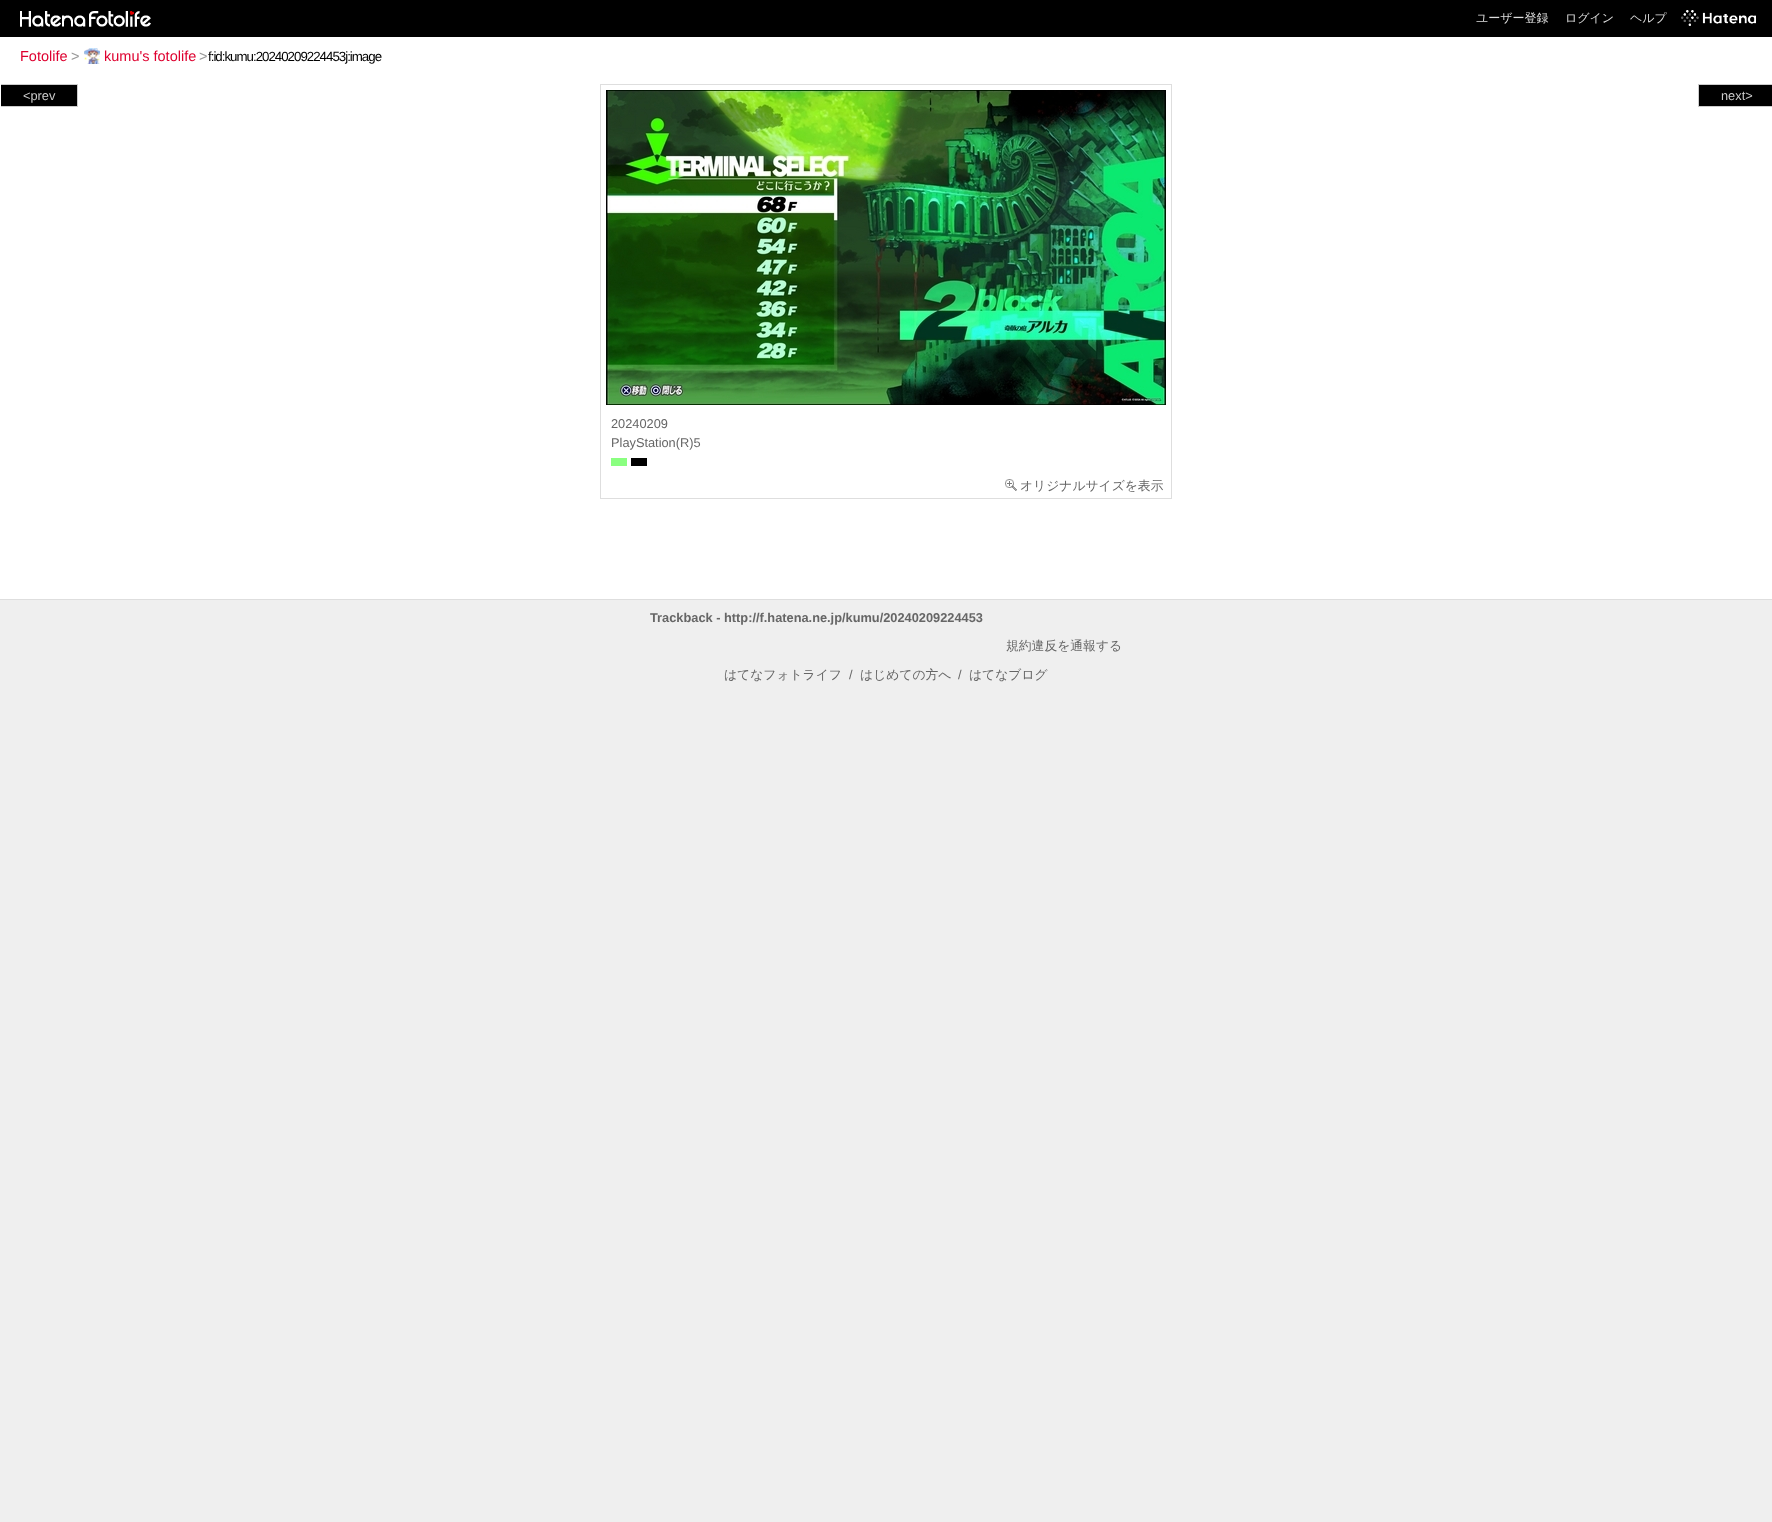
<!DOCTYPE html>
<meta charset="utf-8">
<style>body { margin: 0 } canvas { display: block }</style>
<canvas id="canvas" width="1772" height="1522"></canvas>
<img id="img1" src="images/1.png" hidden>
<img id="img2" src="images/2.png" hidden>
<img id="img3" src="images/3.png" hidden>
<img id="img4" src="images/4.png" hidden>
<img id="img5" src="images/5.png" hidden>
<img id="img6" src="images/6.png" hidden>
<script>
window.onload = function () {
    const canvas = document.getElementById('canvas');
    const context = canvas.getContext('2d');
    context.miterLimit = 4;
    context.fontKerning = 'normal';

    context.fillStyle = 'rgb(239, 239, 239)';
    context.fillRect(0, 0, 1772, 1522);
    context.fillStyle = 'rgb(0, 0, 0)';
    context.fillRect(0, 0, 1772, 37);
    context.drawImage(document.getElementById('img1'), 20, 11, 66, 16);
    context.drawImage(document.getElementById('img2'), 89, 11, 62, 16);
    context.drawImage(document.getElementById('img3'), 1681, 10, 75, 16);
    context.fillStyle = 'rgb(255, 255, 255)';
    context.fillRect(0, 37, 1772, 562);
    context.drawImage(document.getElementById('img4'), 84, 48, 16, 16);
    context.fillStyle = 'rgb(222, 222, 222)';
    context.fillRect(0, 599, 1772, 1);
    context.fillStyle = 'rgb(0, 0, 0)';
    context.fillRect(1, 85, 76, 21);
    context.fillStyle = 'rgb(204, 204, 204)';
    context.fillRect(1, 84, 77, 1);
    context.fillRect(77, 84, 1, 23);
    context.fillRect(1, 106, 77, 1);
    context.fillStyle = 'rgb(0, 0, 0)';
    context.fillRect(1699, 85, 73, 21);
    context.fillStyle = 'rgb(204, 204, 204)';
    context.fillRect(1698, 84, 74, 1);
    context.fillRect(1698, 106, 74, 1);
    context.fillRect(1698, 84, 1, 23);
    context.strokeStyle = 'rgb(222, 222, 222)';
    context.strokeRect(600.5, 84.5, 571, 414);
    context.drawImage(document.getElementById('img5'), 606, 90, 560, 315);
    context.fillStyle = 'rgb(138, 255, 128)';
    context.fillRect(611, 458, 16, 8);
    context.fillStyle = 'rgb(0, 0, 0)';
    context.fillRect(631, 458, 16, 8);
    context.drawImage(document.getElementById('img6'), 1005, 479, 12, 12);
    context.font = '500 12px WenQuanYi Zen Hei';
    context.fillStyle = 'rgb(221, 221, 221)';
    context.fillText('ユーザー登録', 1476, 22);
    context.fillText('ログイン', 1565, 22);
    context.fillText('ヘルプ', 1630, 22);
    context.font = '14.5px Liberation Sans';
    context.fillStyle = 'rgb(222, 0, 47)';
    context.fillText('Fotolife', 20, 61);
    context.fillStyle = 'rgb(153, 153, 153)';
    context.fillText('>', 71, 61);
    context.fillStyle = 'rgb(222, 0, 47)';
    context.fillText('kumu\'s fotolife', 104, 61);
    context.fillStyle = 'rgb(153, 153, 153)';
    context.fillText('>', 199, 61);
    context.letterSpacing = '-1px';
    context.font = '13.3px Liberation Sans';
    context.fillStyle = 'rgb(0, 0, 0)';
    context.fillText('f:id:kumu:20240209224453j:image', 208, 61);
    context.letterSpacing = '0px';
    context.font = '12.8px Liberation Sans';
    context.fillStyle = 'rgb(204, 204, 204)';
    context.fillText('<prev', 23, 100);
    context.fillText('next>', 1721, 100);
    context.fillStyle = 'rgb(102, 102, 102)';
    context.fillText('20240209', 611, 428);
    context.fillText('PlayStation(R)5', 611, 447);
    context.font = '500 12.8px WenQuanYi Zen Hei';
    context.fillText('オリジナルサイズを表示', 1020, 490);
    context.font = 'bold 12.8px Liberation Sans';
    context.fillText('Trackback - http://f.hatena.ne.jp/kumu/20240209224453', 650, 622);
    context.font = '500 12.8px WenQuanYi Zen Hei';
    context.fillText('規約違反を通報する', 1006, 650);
    context.fillText('はてなフォトライフ', 724, 679);
    context.font = '12.8px Liberation Sans';
    context.fillText('/', 849, 679);
    context.font = '500 12.8px WenQuanYi Zen Hei';
    context.fillText('はじめての方へ', 860, 679);
    context.font = '12.8px Liberation Sans';
    context.fillText('/', 958, 679);
    context.font = '500 12.8px WenQuanYi Zen Hei';
    context.fillText('はてなブログ', 969, 679);
};
</script>
